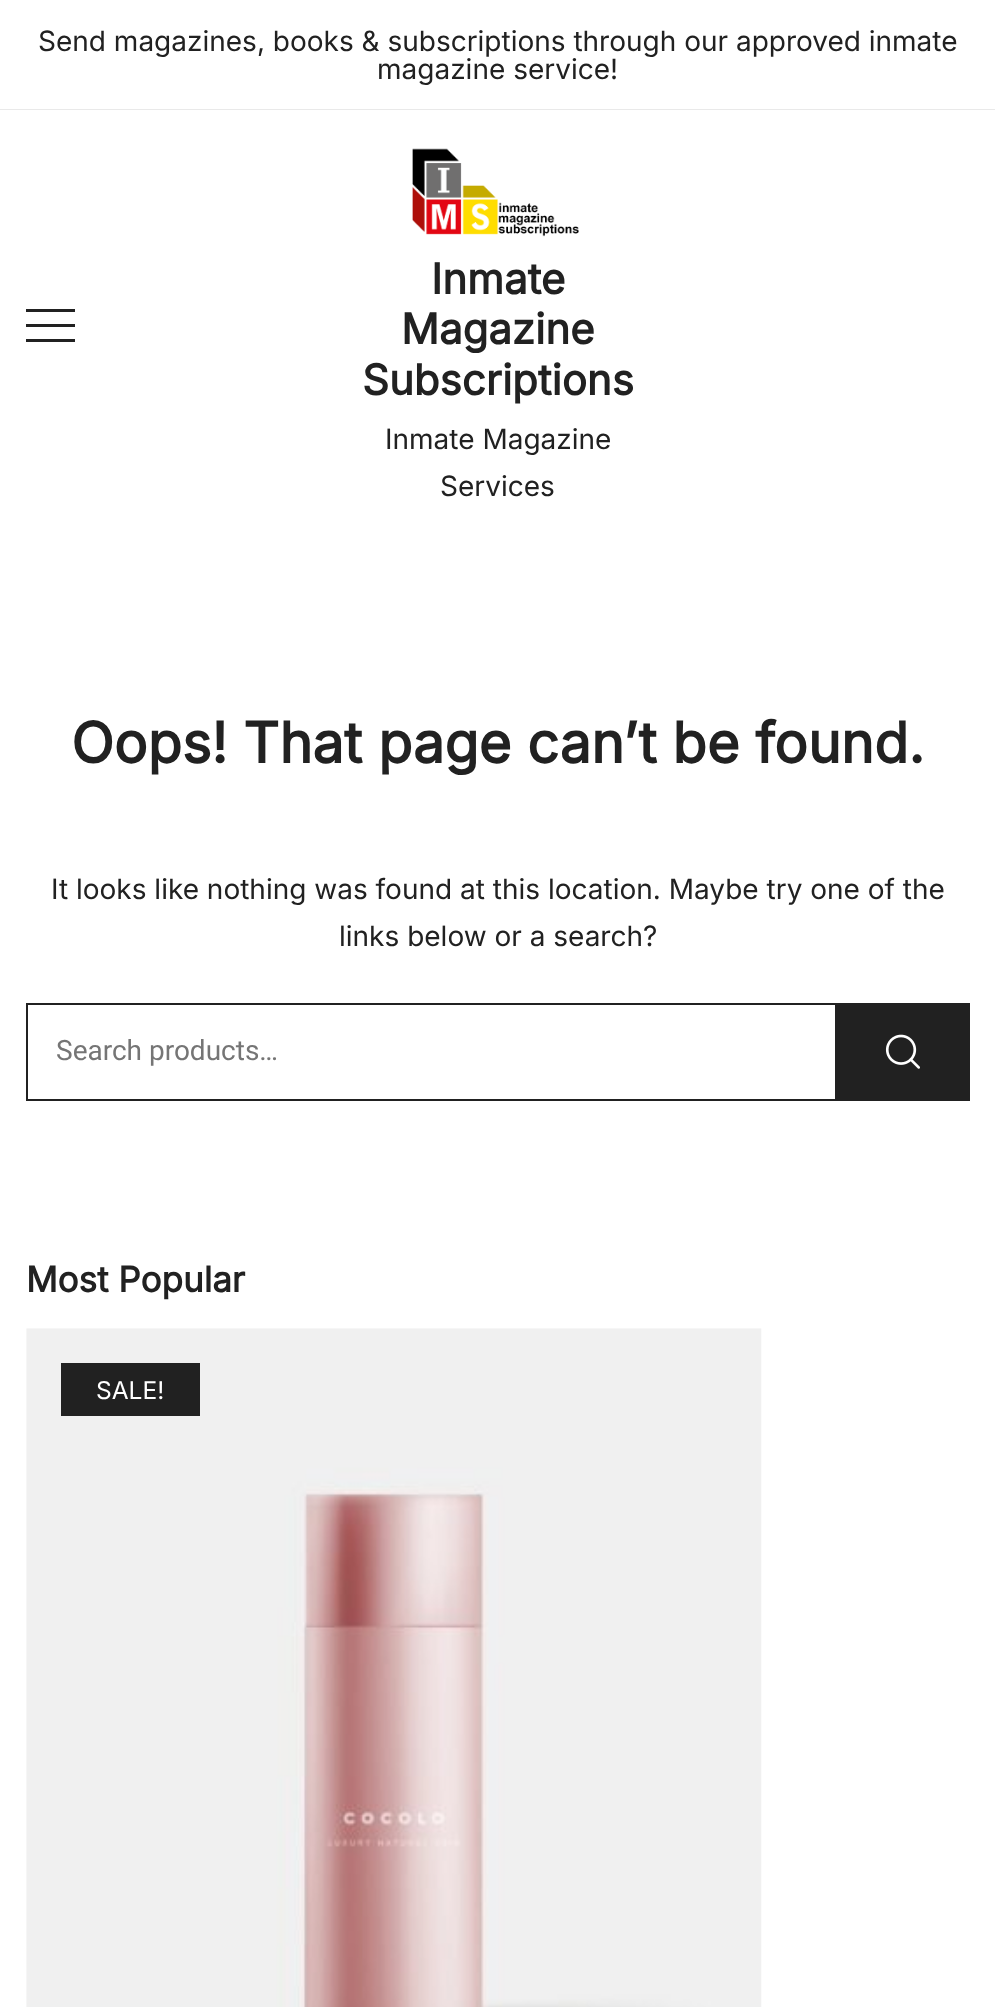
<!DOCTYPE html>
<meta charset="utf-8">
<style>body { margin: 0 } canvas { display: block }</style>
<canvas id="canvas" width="995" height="2007"></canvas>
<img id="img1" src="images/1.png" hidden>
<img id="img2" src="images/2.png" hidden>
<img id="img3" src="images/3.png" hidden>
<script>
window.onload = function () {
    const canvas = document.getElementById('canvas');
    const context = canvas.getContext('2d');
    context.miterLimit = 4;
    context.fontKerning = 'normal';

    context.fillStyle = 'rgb(255, 255, 255)';
    context.fillRect(0, 0, 995, 2007);
    context.fillStyle = 'rgb(233, 233, 233)';
    context.fillRect(0, 109, 995, 1);
    context.fillStyle = 'rgb(33, 33, 33)';
    context.fillRect(26, 309, 49, 3);
    context.fillRect(26, 324, 49, 3);
    context.fillRect(26, 339, 49, 3);
    context.drawImage(document.getElementById('img1'), 412, 148, 167, 89);
    context.strokeStyle = 'rgb(33, 33, 33)';
    context.lineWidth = 2;
    context.strokeRect(27, 1004, 809, 96);
    context.fillRect(837, 1003, 133, 98);
    context.drawImage(document.getElementById('img2'), 885, 1034, 35, 35);
    context.drawImage(document.getElementById('img3'), 26, 1328, 736, 679);
    context.fillRect(61, 1363, 139, 53);
    context.font = '28px Inter';
    context.fillText('Send magazines, books & subscriptions through our approved inmate', 38, 51);
    context.fillText('magazine service!', 377, 79);
    context.font = 'bold 42px Inter';
    context.fillText('Inmate', 431, 294);
    context.fillText('Magazine', 401, 344);
    context.fillText('Subscriptions', 362, 395);
    context.font = '28px Inter';
    context.fillText('Inmate Magazine', 385, 449);
    context.fillText('Services', 440, 496);
    context.font = 'bold 56px Inter';
    context.fillText('Oops! That page can’t be found.', 71, 763);
    context.font = '28px Inter';
    context.fillText('It looks like nothing was found at this location. Maybe try one of the', 51, 899);
    context.fillText('links below or a search?', 339, 946);
    context.font = '28px Roboto';
    context.fillStyle = 'rgb(117, 117, 117)';
    context.fillText('Search products…', 56, 1060);
    context.font = 'bold 35px Inter';
    context.fillStyle = 'rgb(33, 33, 33)';
    context.fillText('Most Popular', 26, 1292);
    context.font = '24.5px Inter';
    context.fillStyle = 'rgb(255, 255, 255)';
    context.fillText('SALE!', 96, 1399);
};
</script>
